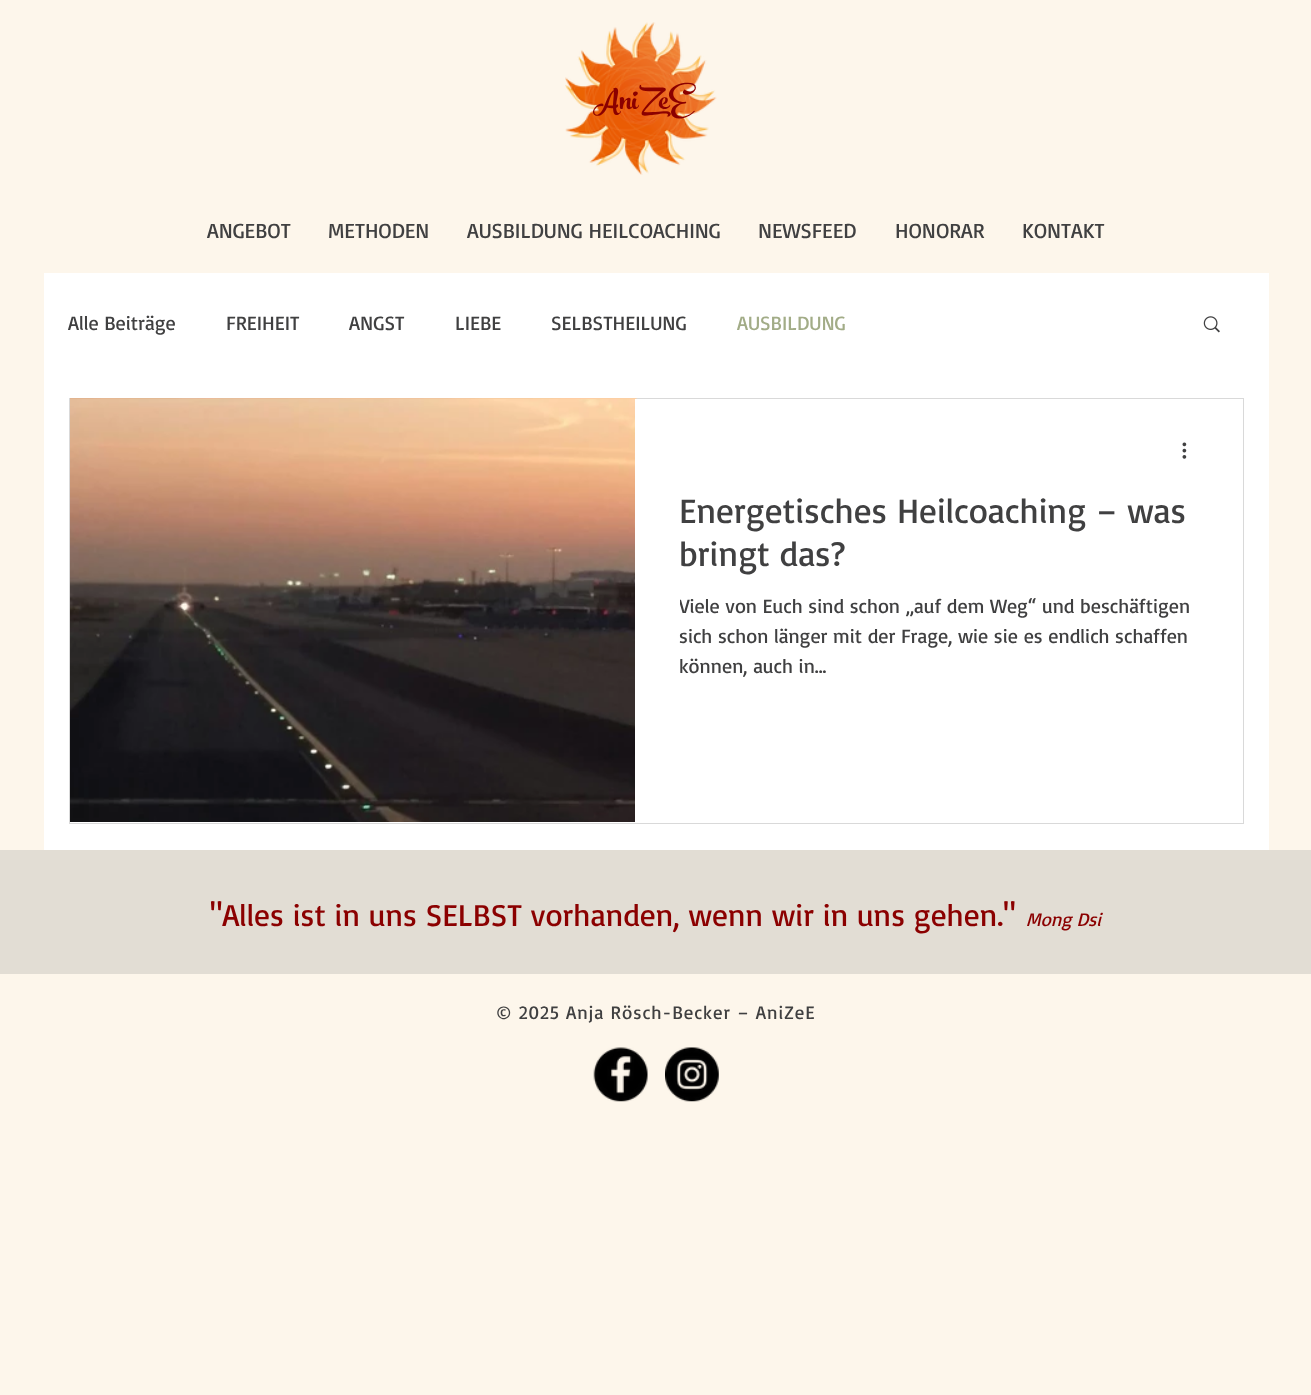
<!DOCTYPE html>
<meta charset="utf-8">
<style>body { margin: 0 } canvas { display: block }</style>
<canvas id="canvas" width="1311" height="1395"></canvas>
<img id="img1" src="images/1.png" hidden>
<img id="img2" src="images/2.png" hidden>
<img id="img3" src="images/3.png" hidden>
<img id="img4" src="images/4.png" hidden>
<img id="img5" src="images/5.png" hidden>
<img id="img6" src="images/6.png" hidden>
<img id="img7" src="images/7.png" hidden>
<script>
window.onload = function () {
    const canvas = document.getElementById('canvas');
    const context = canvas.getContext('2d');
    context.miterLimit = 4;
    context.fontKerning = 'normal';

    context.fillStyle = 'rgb(253, 246, 235)';
    context.fillRect(0, 0, 1311, 1395);
    context.drawImage(document.getElementById('img1'), 565, 22, 152, 153);
    context.fillStyle = 'rgb(255, 255, 255)';
    context.fillRect(44, 273, 1225, 577);
    context.drawImage(document.getElementById('img2'), 1203, 316, 17, 17);
    context.strokeStyle = 'rgb(217, 217, 217)';
    context.strokeRect(69.5, 398.5, 1174, 425);
    context.drawImage(document.getElementById('img3'), 70, 398, 567, 1);
    context.drawImage(document.getElementById('img4'), 70, 399, 565, 423);
    context.drawImage(document.getElementById('img5'), 1182, 442, 5, 17);
    context.fillStyle = 'rgb(226, 221, 212)';
    context.fillRect(0, 850, 1311, 124);
    context.drawImage(document.getElementById('img6'), 593, 1047, 55, 55);
    context.drawImage(document.getElementById('img7'), 665, 1047, 54, 55);
    context.font = '44px "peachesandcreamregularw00"';
    context.fillStyle = 'rgb(139, 0, 0)';
    context.fillText('AniZeE', 593, 109);
    context.font = '21.25px Basic';
    context.fillStyle = 'rgb(64, 64, 65)';
    context.fillText('ANGEBOT', 207, 238);
    context.fillText('METHODEN', 328, 238);
    context.fillText('AUSBILDUNG HEILCOACHING', 467, 238);
    context.fillText('NEWSFEED', 758, 238);
    context.fillText('HONORAR', 895, 238);
    context.fillText('KONTAKT', 1022, 238);
    context.font = '20px Basic';
    context.fillText('Alle Beiträge', 68, 330);
    context.fillText('FREIHEIT', 226, 330);
    context.fillText('ANGST', 349, 330);
    context.fillText('LIEBE', 455, 330);
    context.fillText('SELBSTHEILUNG', 551, 330);
    context.fillStyle = 'rgb(162, 172, 135)';
    context.fillText('AUSBILDUNG', 737, 330);
    context.font = '35px Basic';
    context.fillStyle = 'rgb(64, 64, 65)';
    context.fillText('Energetisches Heilcoaching – was', 679, 523);
    context.fillText('bringt das?', 679, 566);
    context.save();
    context.beginPath();
    context.rect(680, 590, 518, 90);
    context.clip();
    context.font = '20px Basic';
    context.fillText('Viele von Euch sind schon „auf dem Weg“ und beschäftigen', 679, 613);
    context.restore();
    context.font = '20px Basic';
    context.fillText('sich schon länger mit der Frage, wie sie es endlich schaffen', 679, 643);
    context.fillText('können, auch in...', 679, 673);
    context.font = '31.25px Basic';
    context.fillStyle = 'rgb(139, 0, 0)';
    context.fillText('"Alles ist in uns SELBST vorhanden, wenn wir in uns gehen."', 210, 926);
    context.font = 'italic 18.75px Basic';
    context.fillText('Mong Dsi', 1026, 926);
    context.letterSpacing = '0.95px';
    context.font = '18.75px Basic';
    context.fillStyle = 'rgb(64, 64, 65)';
    context.fillText('© 2025 Anja Rösch-Becker – AniZeE', 496, 1019);
};
</script>
